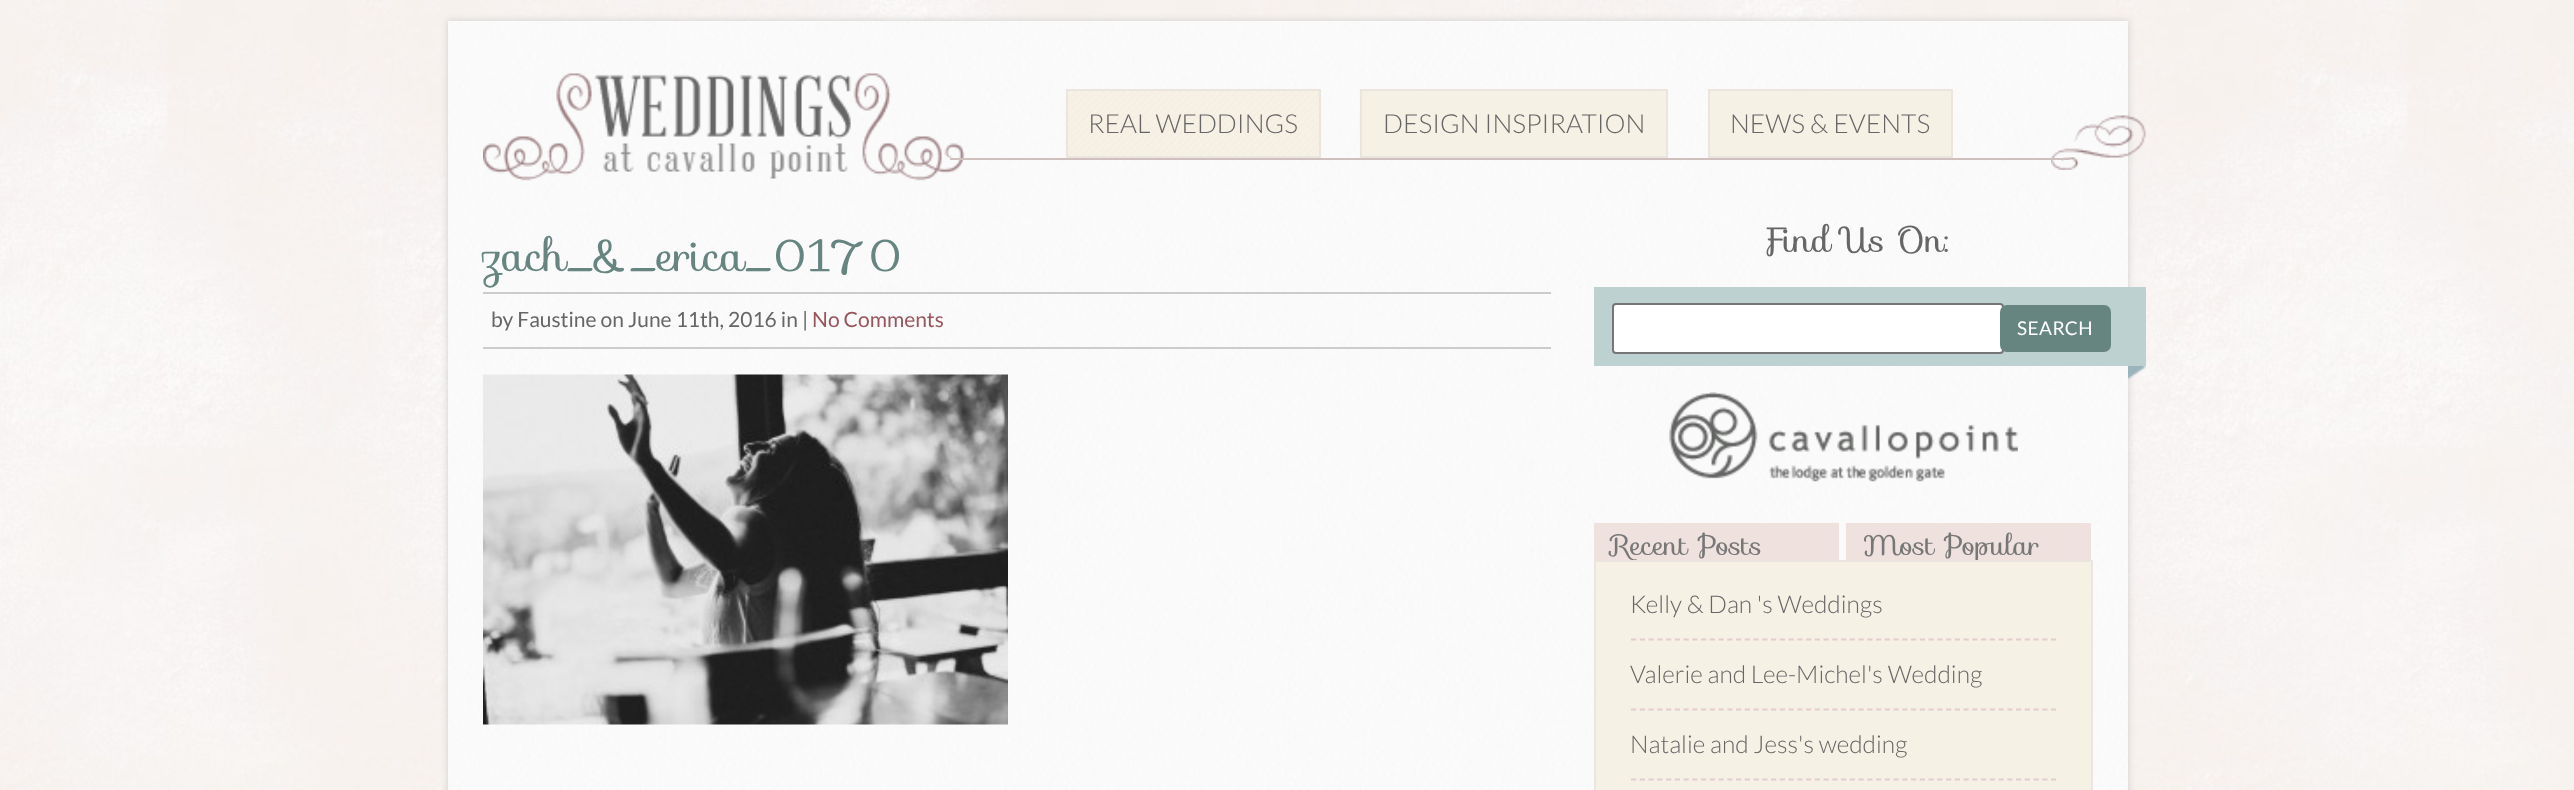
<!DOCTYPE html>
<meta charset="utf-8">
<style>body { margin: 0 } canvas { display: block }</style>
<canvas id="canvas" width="2574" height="790"></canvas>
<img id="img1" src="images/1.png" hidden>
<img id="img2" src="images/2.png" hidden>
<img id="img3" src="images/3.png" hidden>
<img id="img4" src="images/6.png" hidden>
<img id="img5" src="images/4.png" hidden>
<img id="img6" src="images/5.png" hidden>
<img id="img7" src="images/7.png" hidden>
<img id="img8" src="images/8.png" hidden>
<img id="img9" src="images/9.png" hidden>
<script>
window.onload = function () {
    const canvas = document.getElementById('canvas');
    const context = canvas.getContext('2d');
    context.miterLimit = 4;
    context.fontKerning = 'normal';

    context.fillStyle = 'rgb(255, 255, 255)';
    context.fillRect(0, 0, 2574, 790);
    context.drawImage(document.getElementById('img1'), 0, 0, 2574, 790);
    context.fillStyle = 'rgb(204, 204, 204)';
    context.filter = 'blur(3.5px)';
    context.beginPath();
    context.rect(448, 21, 1680, 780);
    context.fill();
    context.filter = 'none';
    context.drawImage(document.getElementById('img2'), 448, 21, 1680, 769);
    context.drawImage(document.getElementById('img3'), 483, 73, 482, 108);
    context.drawImage(document.getElementById('img4'), 2051, 115, 95, 55);
    context.fillStyle = 'rgb(207, 192, 189)';
    context.fillRect(950, 158, 1120, 2);
    context.drawImage(document.getElementById('img5'), 1065, 89, 257, 68);
    context.strokeStyle = 'rgb(236, 229, 223)';
    context.lineWidth = 2;
    context.strokeRect(1067, 90, 253, 67);
    context.fillStyle = 'rgb(246, 241, 229)';
    context.beginPath();
    context.rect(1361, 90, 306, 67);
    context.fill();
    context.stroke();
    context.drawImage(document.getElementById('img6'), 1359, 89, 1, 68);
    context.beginPath();
    context.rect(1709, 90, 243, 67);
    context.fill();
    context.stroke();
    context.fillStyle = 'rgb(204, 204, 204)';
    context.fillRect(483, 292, 1068, 2);
    context.fillRect(483, 347, 1068, 2);
    context.drawImage(document.getElementById('img7'), 483, 374, 525, 351);
    context.fillStyle = 'rgb(190, 209, 209)';
    context.fillRect(1594, 287, 552, 79);
    context.fillStyle = 'rgb(255, 255, 255)';
    context.beginPath();
    context.roundRect(1613, 304, 390, 49, 3);
    context.fill();
    context.strokeStyle = 'rgb(118, 118, 118)';
    context.stroke();
    context.fillStyle = 'rgb(102, 133, 129)';
    context.beginPath();
    context.roundRect(2000, 305, 111, 47, 7);
    context.fill();
    context.drawImage(document.getElementById('img8'), 2128, 366, 18, 14);
    context.drawImage(document.getElementById('img9'), 1669, 392, 349, 90);
    context.fillStyle = 'rgb(239, 225, 222)';
    context.fillRect(1594, 523, 245, 37);
    context.fillRect(1846, 523, 245, 37);
    context.font = '300 26.25px Lato';
    context.fillStyle = 'rgb(102, 102, 102)';
    context.fillText('REAL WEDDINGS', 1088, 133);
    context.fillText('DESIGN INSPIRATION', 1383, 133);
    context.fillText('NEWS & EVENTS', 1730, 133);
    context.font = '43.75px Sofia';
    context.fillStyle = 'rgb(102, 133, 129)';
    context.fillText('zach_&_erica_0170', 482, 271);
    context.font = '21px Lato';
    context.fillStyle = 'rgb(102, 102, 102)';
    context.fillText('by Faustine on June 11th, 2016 in |', 491, 327);
    context.fillStyle = 'rgb(154, 84, 92)';
    context.fillText('No Comments', 812, 327);
    context.font = '35px Sofia';
    context.fillStyle = 'rgb(102, 102, 102)';
    context.fillText('Find Us On:', 1762, 252);
    context.letterSpacing = '0.5px';
    context.font = '19px Lato';
    context.fillStyle = 'rgb(255, 255, 255)';
    context.fillText('SEARCH', 2017, 335);
    context.letterSpacing = '0px';
    context.font = '28px Sofia';
    context.fillStyle = 'rgb(119, 119, 119)';
    context.fillText('Recent Posts', 1611, 555);
    context.fillText('Most Popular', 1863, 555);
    context.fillStyle = 'rgb(246, 241, 229)';
    context.beginPath();
    context.rect(1595, 561, 497, 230);
    context.fill();
    context.strokeStyle = 'rgb(236, 229, 223)';
    context.stroke();
    context.beginPath();
    context.moveTo(1631, 639.5);
    context.lineTo(2056, 639.5);
    context.strokeStyle = 'rgb(228, 203, 206)';
    context.lineWidth = 1.8;
    context.setLineDash([5.25, 3.5]);
    context.stroke();
    context.font = '300 24.5px Lato';
    context.fillStyle = 'rgb(102, 102, 102)';
    context.fillText('Kelly & Dan \'s Weddings', 1630, 613);
    context.beginPath();
    context.moveTo(1631, 709.5);
    context.lineTo(2056, 709.5);
    context.stroke();
    context.fillText('Valerie and Lee-Michel\'s Wedding', 1630, 683);
    context.beginPath();
    context.moveTo(1631, 779.5);
    context.lineTo(2056, 779.5);
    context.stroke();
    context.fillText('Natalie and Jess\'s wedding', 1630, 753);
};
</script>
